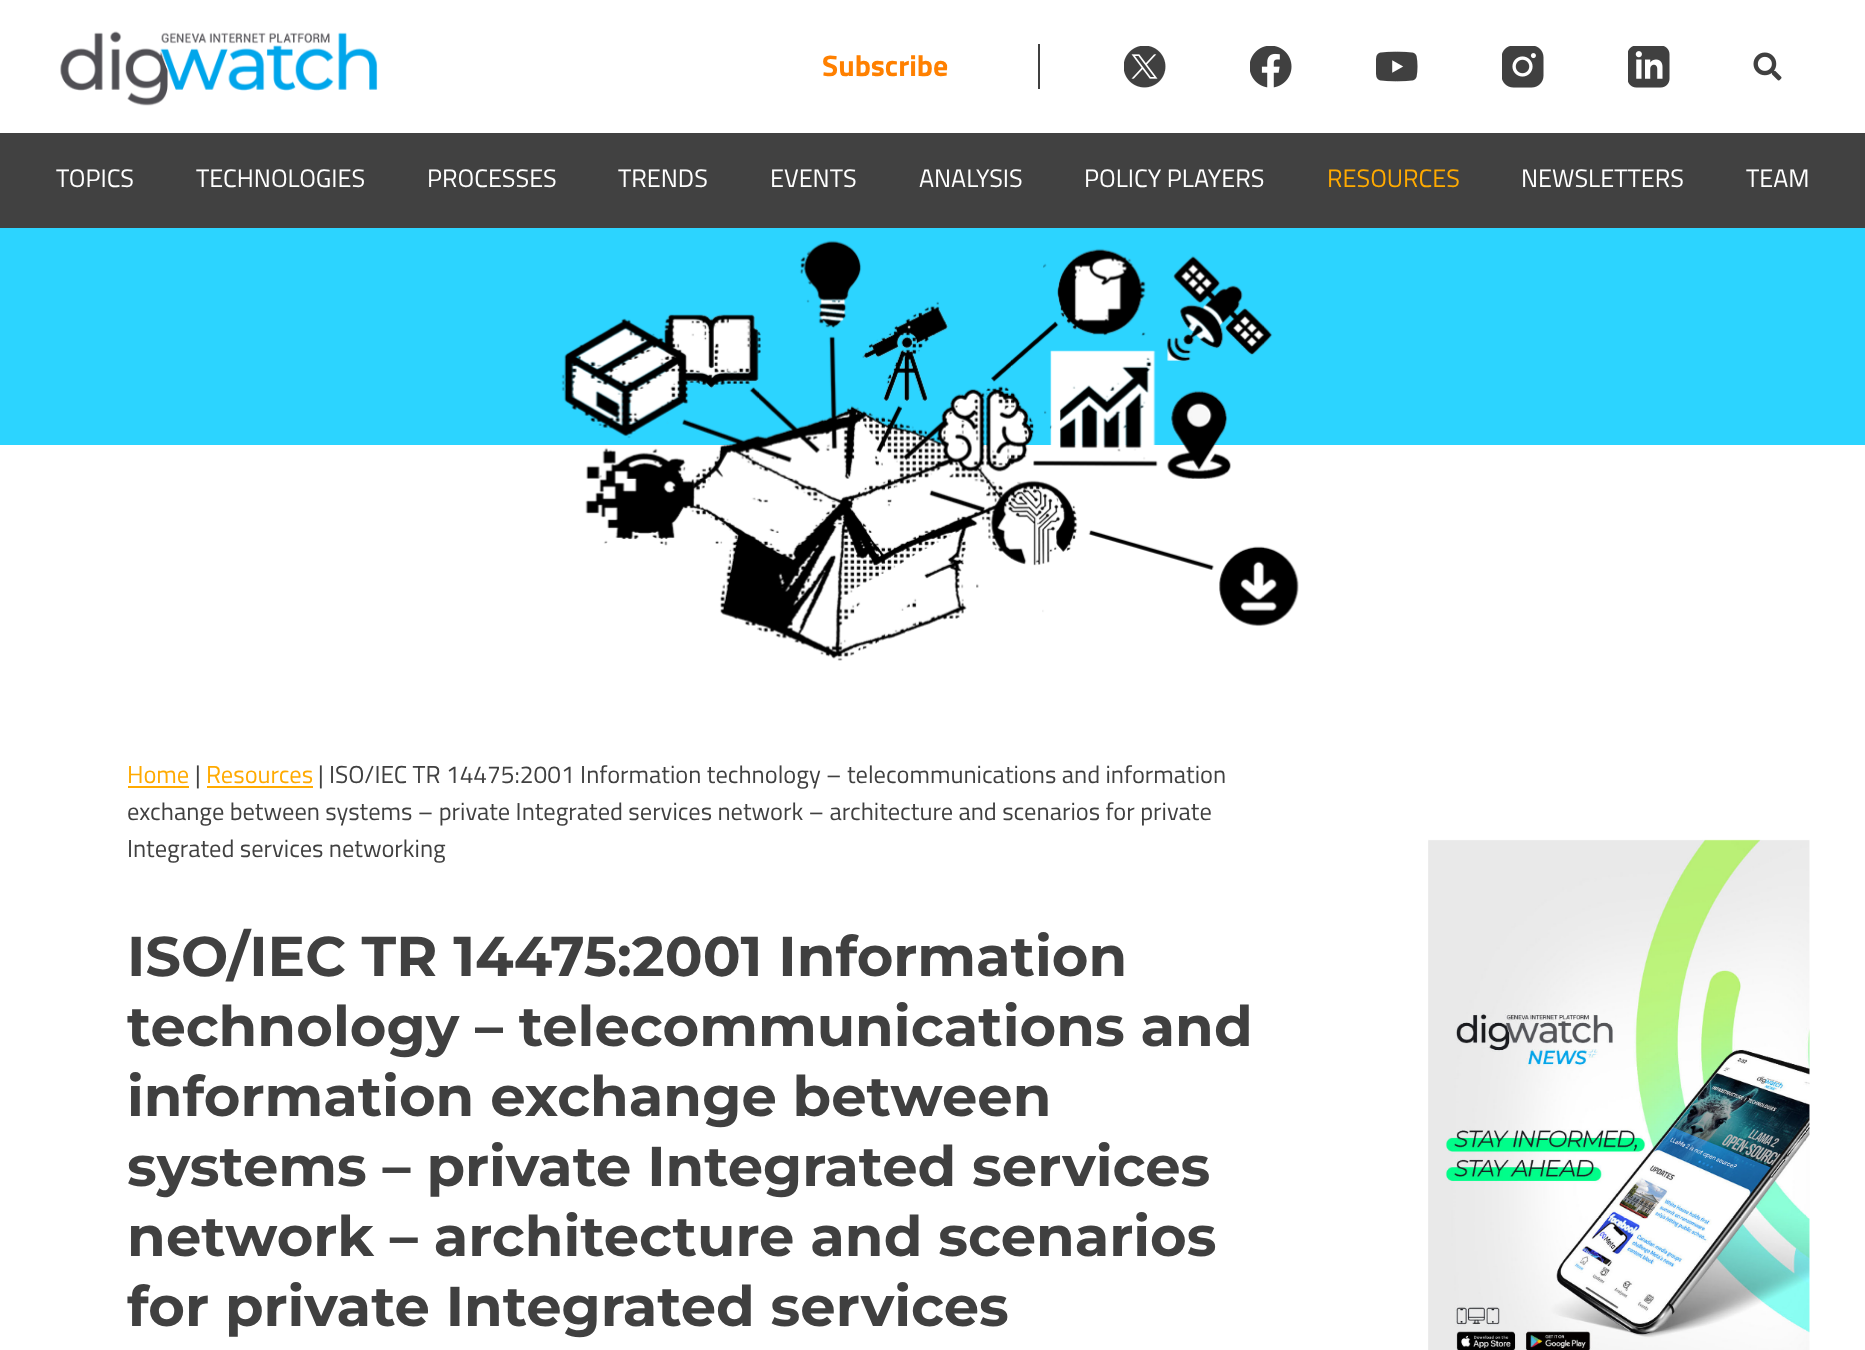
<!DOCTYPE html>
<meta charset="utf-8">
<style>body { margin: 0 } canvas { display: block }</style>
<canvas id="canvas" width="1865" height="1350"></canvas>
<img id="img1" src="images/1.png" hidden>
<img id="img2" src="images/2.png" hidden>
<img id="img3" src="images/3.png" hidden>
<img id="img4" src="images/4.png" hidden>
<img id="img5" src="images/5.png" hidden>
<img id="img6" src="images/6.png" hidden>
<img id="img7" src="images/7.png" hidden>
<img id="img8" src="images/8.png" hidden>
<img id="img9" src="images/9.png" hidden>
<script>
window.onload = function () {
    const canvas = document.getElementById('canvas');
    const context = canvas.getContext('2d');
    context.miterLimit = 4;
    context.fontKerning = 'normal';

    context.fillStyle = 'rgb(255, 255, 255)';
    context.fillRect(0, 0, 1865, 1350);
    context.drawImage(document.getElementById('img1'), 60, 31, 318, 75);
    context.fillStyle = 'rgb(64, 64, 64)';
    context.fillRect(1038, 44, 2, 45);
    context.drawImage(document.getElementById('img2'), 1124, 46, 42, 42);
    context.drawImage(document.getElementById('img3'), 1250, 46, 42, 42);
    context.drawImage(document.getElementById('img4'), 1376, 51, 42, 31);
    context.drawImage(document.getElementById('img5'), 1502, 46, 42, 42);
    context.drawImage(document.getElementById('img6'), 1628, 46, 42, 42);
    context.drawImage(document.getElementById('img7'), 1753, 52, 29, 29);
    context.fillStyle = 'rgb(65, 65, 65)';
    context.fillRect(0, 133, 1865, 95);
    context.fillStyle = 'rgb(44, 212, 255)';
    context.fillRect(0, 228, 1865, 217);
    context.drawImage(document.getElementById('img8'), 561, 240, 738, 421);
    context.fillStyle = 'rgb(255, 170, 0)';
    context.fillRect(128, 786, 61, 2);
    context.fillRect(207, 786, 106, 2);
    context.drawImage(document.getElementById('img9'), 1428, 839, 382, 511);
    context.font = 'bold 29.75px Titillium Web';
    context.fillStyle = 'rgb(255, 128, 0)';
    context.fillText('Subscribe', 822, 76);
    context.font = '25.25px Titillium Web';
    context.fillStyle = 'rgb(255, 255, 255)';
    context.fillText('TOPICS', 56, 187);
    context.fillText('TECHNOLOGIES', 196, 187);
    context.fillText('PROCESSES', 427, 187);
    context.fillText('TRENDS', 618, 187);
    context.fillText('EVENTS', 770, 187);
    context.fillText('ANALYSIS', 919, 187);
    context.fillText('POLICY PLAYERS', 1084, 187);
    context.fillStyle = 'rgb(255, 170, 0)';
    context.fillText('RESOURCES', 1327, 187);
    context.fillStyle = 'rgb(255, 255, 255)';
    context.fillText('NEWSLETTERS', 1521, 187);
    context.fillText('TEAM', 1746, 187);
    context.font = '24.5px Titillium Web';
    context.fillStyle = 'rgb(255, 170, 0)';
    context.fillText('Home', 127, 783);
    context.fillStyle = 'rgb(64, 64, 64)';
    context.fillText('|', 195, 783);
    context.fillStyle = 'rgb(255, 170, 0)';
    context.fillText('Resources', 206, 783);
    context.fillStyle = 'rgb(64, 64, 64)';
    context.fillText('| ISO/IEC TR 14475:2001 Information technology – telecommunications and information', 318, 783);
    context.fillText('exchange between systems – private Integrated services network – architecture and scenarios for private', 127, 820);
    context.fillText('Integrated services networking', 127, 857);
    context.font = 'bold 56px Montserrat';
    context.fillText('ISO/IEC TR 14475:2001 Information', 127, 976);
    context.fillText('technology – telecommunications and', 127, 1046);
    context.fillText('information exchange between', 127, 1116);
    context.fillText('systems – private Integrated services', 127, 1186);
    context.fillText('network – architecture and scenarios', 127, 1256);
    context.fillText('for private Integrated services', 127, 1326);
};
</script>
